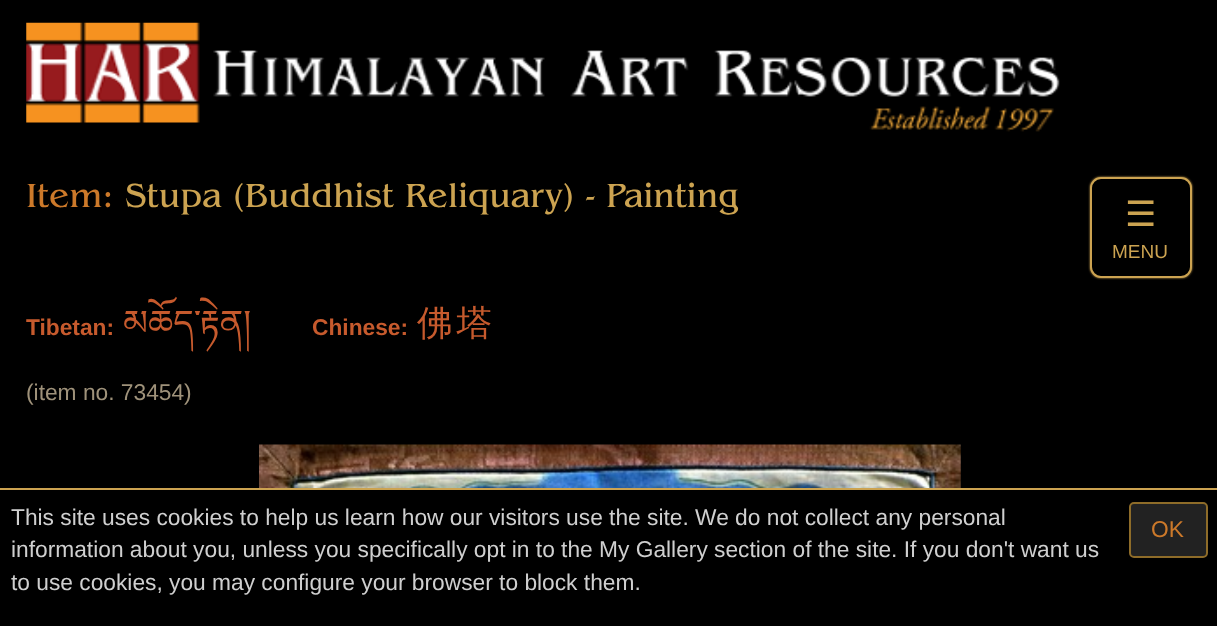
<!DOCTYPE html>
<meta charset="utf-8">
<style>body { margin: 0 } canvas { display: block }</style>
<canvas id="canvas" width="1217" height="626"></canvas>
<img id="img1" src="images/1.png" hidden>
<img id="img2" src="images/2.png" hidden>
<script>
window.onload = function () {
    const canvas = document.getElementById('canvas');
    const context = canvas.getContext('2d');
    context.miterLimit = 4;
    context.fontKerning = 'normal';

    context.fillStyle = 'rgb(0, 0, 0)';
    context.fillRect(0, 0, 1217, 626);
    context.drawImage(document.getElementById('img1'), 26, 22, 1034, 110);
    context.fillStyle = 'rgb(204, 163, 81)';
    context.filter = 'blur(1px)';
    context.beginPath();
    context.roundRect(1090, 177, 102, 101, 11);
    context.fill();
    context.filter = 'none';
    context.fillStyle = 'rgb(0, 0, 0)';
    context.beginPath();
    context.roundRect(1091, 178, 100, 99, 10);
    context.fill();
    context.strokeStyle = 'rgb(204, 163, 81)';
    context.lineWidth = 2;
    context.stroke();
    context.drawImage(document.getElementById('img2'), 259, 444, 702, 44);
    context.fillStyle = 'rgb(204, 163, 81)';
    context.fillRect(0, 488, 1217, 2);
    context.fillStyle = 'rgb(34, 34, 34)';
    context.beginPath();
    context.roundRect(1130, 503, 77, 54, 4);
    context.fill();
    context.strokeStyle = 'rgb(142, 108, 41)';
    context.stroke();
    context.font = '35px "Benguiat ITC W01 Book"';
    context.fillStyle = 'rgb(204, 121, 42)';
    context.fillText('Item:', 26, 207);
    context.fillStyle = 'rgb(204, 163, 81)';
    context.fillText('Stupa (Buddhist Reliquary) - Painting', 125, 207);
    context.font = '35px DejaVu Sans';
    context.fillText('☰', 1125, 226);
    context.font = '19px Liberation Sans';
    context.fillText('MENU', 1112, 258);
    context.font = 'bold 22.75px Liberation Sans';
    context.fillStyle = 'rgb(198, 90, 45)';
    context.fillText('Tibetan:', 26, 335);
    context.font = '35.5px Noto Serif Tibetan';
    context.fillText('མཆོད་རྟེན།', 123, 335);
    context.font = 'bold 22.75px Liberation Sans';
    context.fillText('Chinese:', 312, 335);
    context.letterSpacing = '4px';
    context.font = '500 35.5px WenQuanYi Zen Hei';
    context.fillText('佛塔', 417, 335);
    context.letterSpacing = '0px';
    context.font = '22.75px Liberation Sans';
    context.fillStyle = 'rgb(159, 146, 122)';
    context.fillText('(item no. 73454)', 26, 400);
    context.fillStyle = 'rgb(207, 207, 207)';
    context.fillText('This site uses cookies to help us learn how our visitors use the site. We do not collect any personal', 11, 525);
    context.fillText('information about you, unless you specifically opt in to the My Gallery section of the site. If you don\'t want us', 11, 557);
    context.fillText('to use cookies, you may configure your browser to block them.', 11, 590);
    context.fillStyle = 'rgb(204, 121, 42)';
    context.fillText('OK', 1151, 537);
};
</script>
